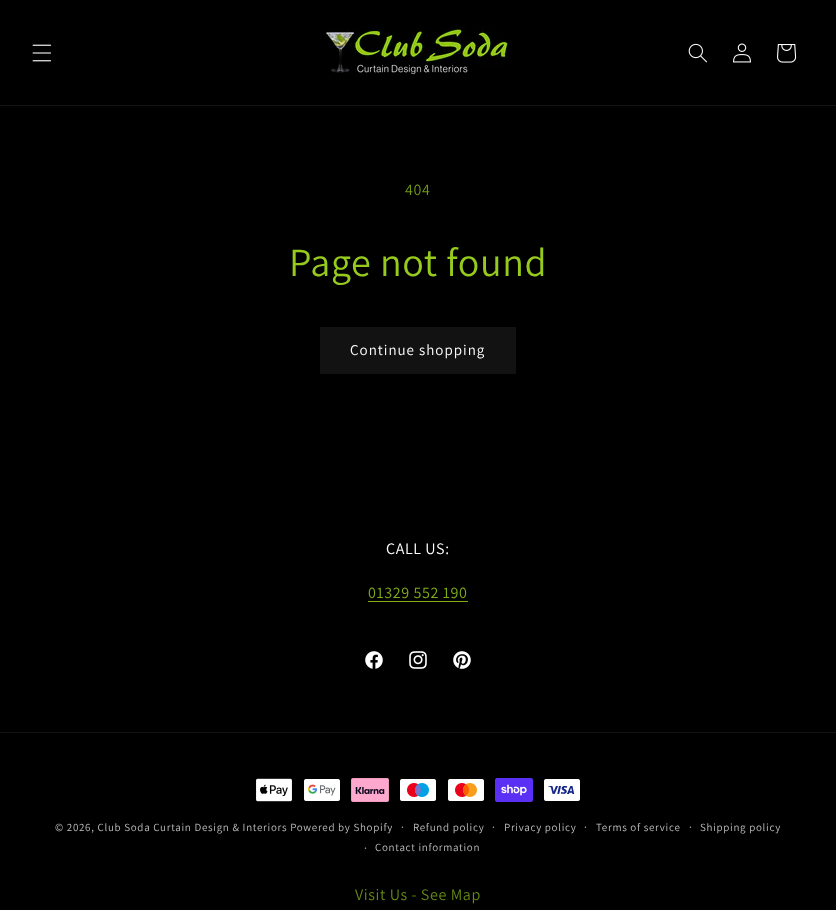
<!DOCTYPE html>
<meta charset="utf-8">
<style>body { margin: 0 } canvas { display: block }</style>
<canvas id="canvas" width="836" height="910"></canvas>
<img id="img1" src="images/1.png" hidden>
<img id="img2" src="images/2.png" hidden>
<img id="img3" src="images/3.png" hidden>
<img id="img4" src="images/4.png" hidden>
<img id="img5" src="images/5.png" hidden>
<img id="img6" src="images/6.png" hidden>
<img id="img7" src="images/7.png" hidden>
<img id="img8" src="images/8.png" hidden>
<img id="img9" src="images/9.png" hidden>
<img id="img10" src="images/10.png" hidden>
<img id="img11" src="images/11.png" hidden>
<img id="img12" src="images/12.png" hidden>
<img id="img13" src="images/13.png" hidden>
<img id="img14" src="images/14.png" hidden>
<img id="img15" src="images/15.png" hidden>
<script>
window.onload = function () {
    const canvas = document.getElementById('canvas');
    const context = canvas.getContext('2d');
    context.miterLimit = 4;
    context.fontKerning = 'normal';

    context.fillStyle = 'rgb(0, 0, 0)';
    context.fillRect(0, 0, 836, 910);
    context.fillStyle = 'rgb(20, 20, 20)';
    context.fillRect(0, 105, 836, 1);
    context.drawImage(document.getElementById('img1'), 32, 44, 20, 18);
    context.drawImage(document.getElementById('img2'), 325, 26, 188, 52);
    context.drawImage(document.getElementById('img3'), 688, 43, 19, 20);
    context.drawImage(document.getElementById('img4'), 733, 43, 18, 20);
    context.drawImage(document.getElementById('img5'), 777, 44, 20, 19);
    context.fillStyle = 'rgb(18, 18, 18)';
    context.fillRect(320, 327, 196, 47);
    context.fillStyle = 'rgb(128, 172, 25)';
    context.fillRect(368, 601, 100, 1);
    context.drawImage(document.getElementById('img6'), 365, 651, 18, 18);
    context.drawImage(document.getElementById('img7'), 409, 651, 18, 18);
    context.drawImage(document.getElementById('img8'), 453, 651, 18, 18);
    context.fillStyle = 'rgb(20, 20, 20)';
    context.fillRect(0, 732, 836, 1);
    context.drawImage(document.getElementById('img9'), 256, 778, 36, 24);
    context.drawImage(document.getElementById('img10'), 304, 779, 36, 22);
    context.drawImage(document.getElementById('img11'), 351, 778, 38, 24);
    context.drawImage(document.getElementById('img12'), 400, 779, 36, 22);
    context.drawImage(document.getElementById('img13'), 448, 779, 36, 22);
    context.drawImage(document.getElementById('img14'), 495, 778, 38, 24);
    context.drawImage(document.getElementById('img15'), 544, 779, 36, 22);
    context.letterSpacing = '0.6px';
    context.font = '16px Assistant';
    context.fillStyle = 'rgb(113, 152, 22)';
    context.fillText('404', 405, 195);
    context.font = '40px Assistant';
    context.fillStyle = 'rgb(150, 202, 29)';
    context.fillText('Page not found', 289, 276);
    context.letterSpacing = '1px';
    context.font = '15px Assistant';
    context.fillStyle = 'rgb(255, 255, 255)';
    context.fillText('Continue shopping', 350, 355);
    context.letterSpacing = '0.6px';
    context.font = '16px Assistant';
    context.fillText('CALL US:', 386, 554);
    context.fillStyle = 'rgb(128, 172, 25)';
    context.fillText('01329 552 190', 368, 598);
    context.letterSpacing = '0.7px';
    context.font = '11px Assistant';
    context.fillStyle = 'rgb(191, 191, 191)';
    context.fillText('© 2026, Club Soda Curtain Design & Interiors Powered by Shopify', 55, 831);
    context.font = '12px Assistant';
    context.fillText('·', 401, 831);
    context.font = '11px Assistant';
    context.fillText('Refund policy', 413, 831);
    context.font = '12px Assistant';
    context.fillText('·', 492, 831);
    context.font = '11px Assistant';
    context.fillText('Privacy policy', 504, 831);
    context.font = '12px Assistant';
    context.fillText('·', 584, 831);
    context.font = '11px Assistant';
    context.fillText('Terms of service', 596, 831);
    context.font = '12px Assistant';
    context.fillText('·', 689, 831);
    context.font = '11px Assistant';
    context.fillText('Shipping policy', 700, 831);
    context.font = '12px Assistant';
    context.fillText('·', 364, 852);
    context.font = '11px Assistant';
    context.fillText('Contact information', 375, 851);
    context.letterSpacing = '0.6px';
    context.font = '16px Assistant';
    context.fillStyle = 'rgb(101, 137, 20)';
    context.fillText('Visit Us - See Map', 355, 900);
};
</script>
